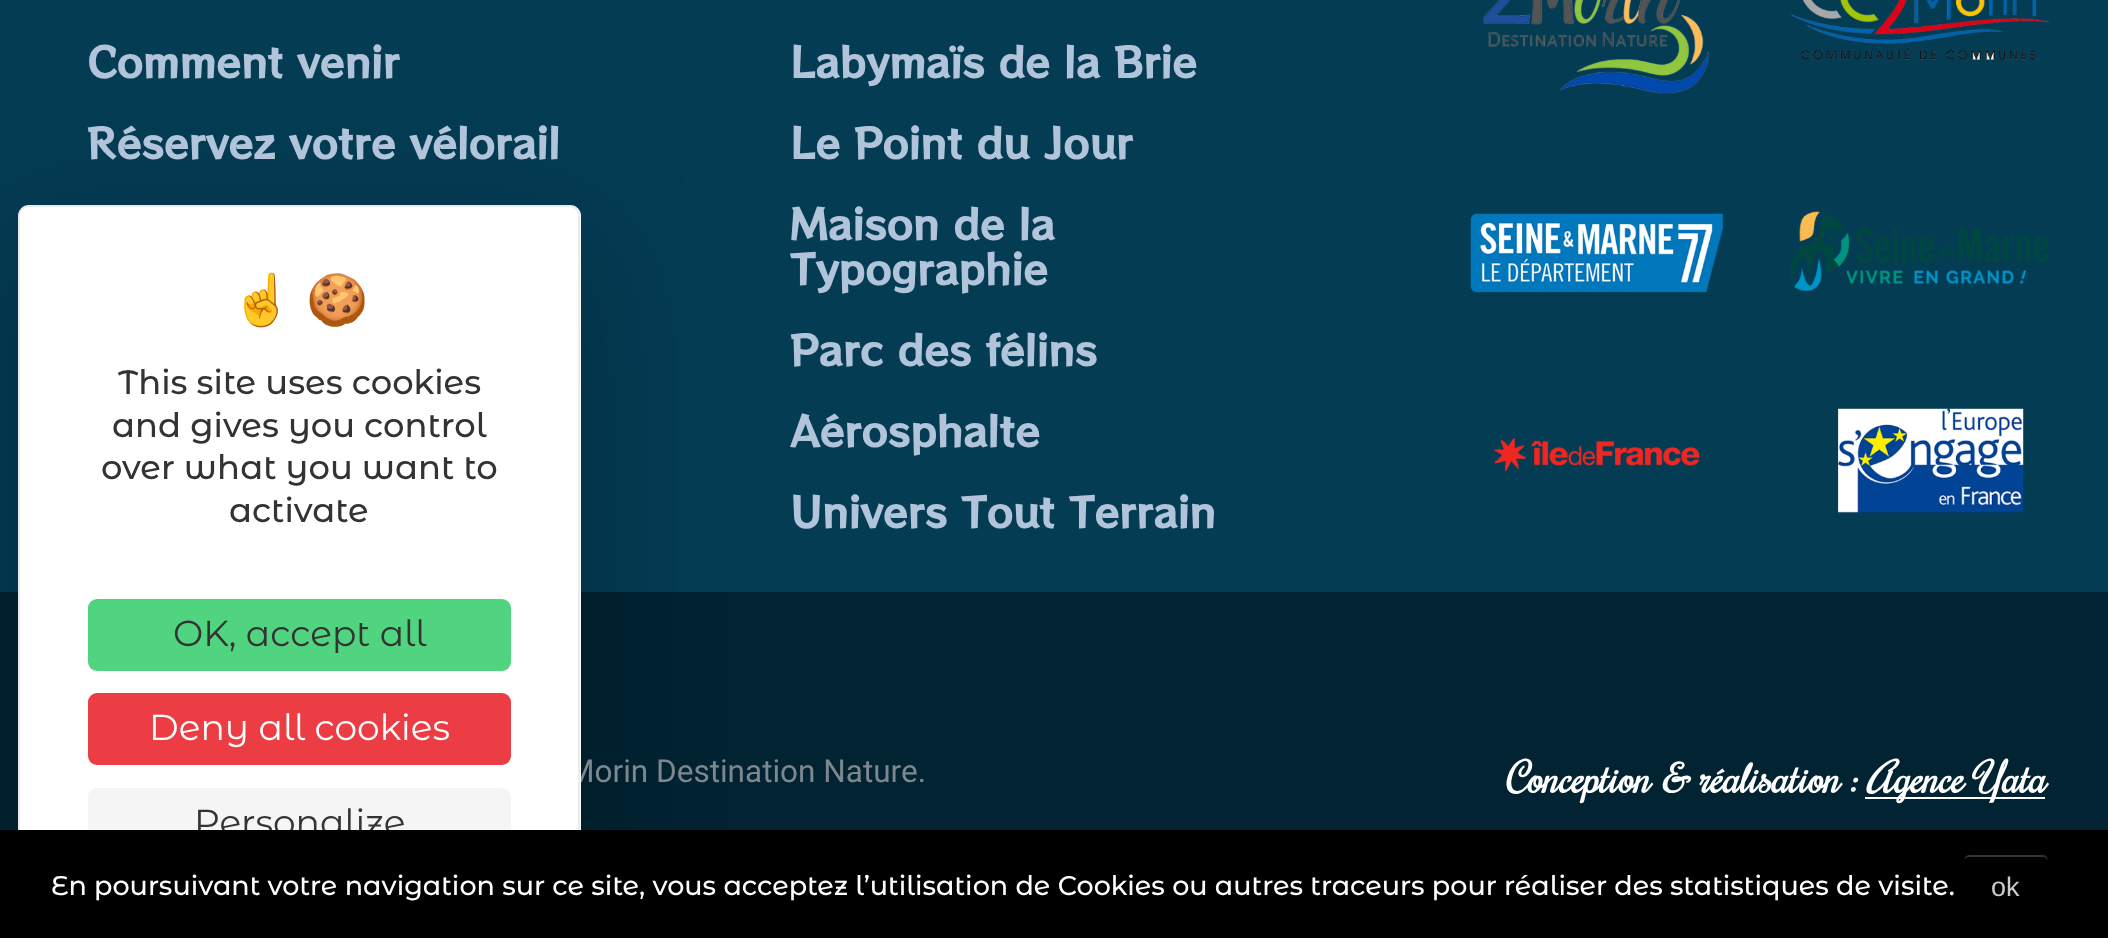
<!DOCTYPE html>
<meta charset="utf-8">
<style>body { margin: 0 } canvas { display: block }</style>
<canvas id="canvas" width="2108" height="938"></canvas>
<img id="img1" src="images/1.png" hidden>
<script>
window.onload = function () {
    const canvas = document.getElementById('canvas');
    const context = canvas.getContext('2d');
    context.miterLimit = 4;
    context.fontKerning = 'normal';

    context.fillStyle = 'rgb(4, 60, 84)';
    context.fillRect(0, 0, 2108, 938);
    context.drawImage(document.getElementById('img1'), 1470, 0, 580, 513);
    context.fillStyle = 'rgb(1, 35, 50)';
    context.fillRect(0, 592, 2108, 238);
    context.fillStyle = 'rgb(255, 255, 255)';
    context.fillRect(1865, 797, 180, 2);
    context.fillStyle = 'rgba(0, 0, 0, 0.25)';
    context.filter = 'blur(67.5px)';
    context.beginPath();
    context.roundRect(18, 250, 563, 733, 11);
    context.fill();
    context.filter = 'none';
    context.font = 'bold 40.5px RocknRoll One';
    context.fillStyle = 'rgb(178, 196, 218)';
    context.fillText('Comment venir', 87, 78);
    context.fillText('Réservez votre vélorail', 87, 159);
    context.fillText('Labymaïs de la Brie', 790, 78);
    context.fillText('Le Point du Jour', 790, 159);
    context.fillText('Maison de la', 790, 240);
    context.fillText('Typographie', 790, 285);
    context.fillText('Parc des félins', 790, 366);
    context.fillText('Aérosphalte', 790, 447);
    context.fillText('Univers Tout Terrain', 790, 528);
    context.font = '31.5px Roboto';
    context.fillStyle = 'rgb(124, 136, 141)';
    context.fillText('Morin Destination Nature.', 567, 782);
    context.font = 'italic bold 40.5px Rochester';
    context.fillStyle = 'rgb(255, 255, 255)';
    context.fillText('Conception & réalisation :', 1504, 793);
    context.fillText('Agence Yata', 1866, 793);
    context.beginPath();
    context.roundRect(18, 205, 563, 733, [11, 11, 0, 0]);
    context.fill();
    context.fillStyle = 'rgba(0, 0, 0, 0.08)';
    context.beginPath();
    context.moveTo(29, 205);
    context.lineTo(569, 205);
    context.bezierCurveTo(575, 205, 580, 210, 580, 216);
    context.lineTo(580, 938);
    context.lineTo(18, 938);
    context.lineTo(18, 216);
    context.bezierCurveTo(18, 210, 23, 205, 29, 205);
    context.closePath();
    context.moveTo(29, 207);
    context.lineTo(569, 207);
    context.bezierCurveTo(574, 207, 578, 211, 578, 216);
    context.lineTo(578, 938);
    context.lineTo(20, 938);
    context.lineTo(20, 216);
    context.bezierCurveTo(20, 211, 24, 207, 29, 207);
    context.closePath();
    context.fill('evenodd');
    context.font = '50px Noto Color Emoji';
    context.fillStyle = 'rgb(51, 51, 51)';
    context.fillText('☝️', 231, 317);
    context.fillText('🍪', 306, 317);
    context.font = '500 33.75px Montserrat Alternates';
    context.fillText('This site uses cookies', 118, 394);
    context.fillText('and gives you control', 112, 437);
    context.fillText('over what you want to', 101, 479);
    context.fillText('activate', 229, 522);
    context.fillStyle = 'rgb(81, 212, 127)';
    context.beginPath();
    context.roundRect(88, 599, 423, 72, 9);
    context.fill();
    context.font = '36px Montserrat Alternates';
    context.fillStyle = 'rgb(51, 51, 51)';
    context.fillText('OK, accept all', 173, 646);
    context.fillStyle = 'rgb(235, 61, 67)';
    context.beginPath();
    context.roundRect(88, 693, 423, 72, 9);
    context.fill();
    context.fillStyle = 'rgb(255, 255, 255)';
    context.fillText('Deny all cookies', 149, 740);
    context.fillStyle = 'rgb(245, 245, 245)';
    context.beginPath();
    context.roundRect(88, 788, 423, 72, 9);
    context.fill();
    context.fillStyle = 'rgb(51, 51, 51)';
    context.fillText('Personalize', 194, 835);
    context.fillStyle = 'rgb(0, 0, 0)';
    context.fillRect(0, 830, 2108, 108);
    context.font = '500 27px Montserrat Alternates';
    context.fillStyle = 'rgb(255, 255, 255)';
    context.fillText('En poursuivant votre navigation sur ce site, vous acceptez l’utilisation de Cookies ou autres traceurs pour réaliser des statistiques de visite.', 51, 895);
    context.fillStyle = 'rgb(51, 51, 51)';
    context.beginPath();
    context.moveTo(1969, 857);
    context.lineTo(2043, 857);
    context.bezierCurveTo(2045, 857, 2048, 859, 2048, 862);
    context.bezierCurveTo(2048, 852, 2039, 855, 2031, 855);
    context.lineTo(1981, 855);
    context.bezierCurveTo(1973, 855, 1964, 852, 1964, 862);
    context.bezierCurveTo(1964, 859, 1966, 857, 1969, 857);
    context.closePath();
    context.fill();
    context.beginPath();
    context.roundRect(1963, 854, 86, 65, 6);
    context.strokeStyle = 'rgb(0, 0, 0)';
    context.lineWidth = 2;
    context.stroke();
    context.font = '27px Liberation Sans';
    context.fillStyle = 'rgb(204, 204, 204)';
    context.fillText('ok', 1991, 896);
};
</script>
